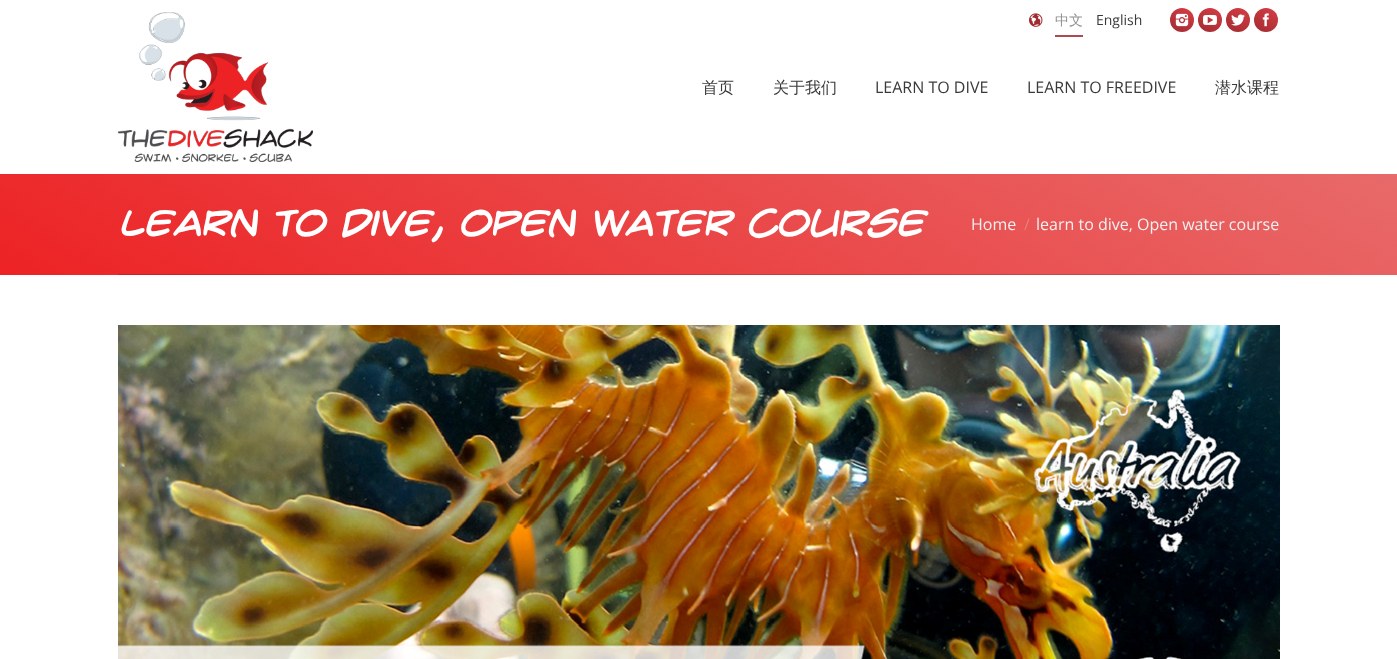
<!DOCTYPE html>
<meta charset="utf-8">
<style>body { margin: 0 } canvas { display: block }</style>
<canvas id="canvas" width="1397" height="659"></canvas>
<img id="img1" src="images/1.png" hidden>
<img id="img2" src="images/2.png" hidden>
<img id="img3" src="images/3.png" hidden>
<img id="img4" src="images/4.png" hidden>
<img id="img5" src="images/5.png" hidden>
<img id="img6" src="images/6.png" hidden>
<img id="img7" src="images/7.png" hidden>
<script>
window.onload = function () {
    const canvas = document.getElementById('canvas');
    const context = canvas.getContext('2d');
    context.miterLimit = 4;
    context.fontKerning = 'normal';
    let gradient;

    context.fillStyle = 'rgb(255, 255, 255)';
    context.fillRect(0, 0, 1397, 659);
    context.drawImage(document.getElementById('img1'), 1029, 13, 14, 14);
    context.fillStyle = 'rgb(175, 75, 80)';
    context.fillRect(1055, 35, 28, 2);
    gradient = context.createLinearGradient(1174, 34, 1190, 5.8);
    gradient.addColorStop(0, 'rgb(161, 43, 49)');
    gradient.addColorStop(1, 'rgb(215, 62, 69)');
    context.fillStyle = gradient;
    context.beginPath();
    context.arc(1182, 20, 12, 0, 2 * Math.PI);
    context.fill();
    context.drawImage(document.getElementById('img2'), 1175, 13, 14, 14);
    gradient = context.createLinearGradient(1202, 34, 1218, 5.8);
    gradient.addColorStop(0, 'rgb(161, 43, 49)');
    gradient.addColorStop(1, 'rgb(215, 62, 69)');
    context.fillStyle = gradient;
    context.beginPath();
    context.arc(1210, 20, 12, 0, 2 * Math.PI);
    context.fill();
    context.drawImage(document.getElementById('img3'), 1203, 14, 14, 11);
    gradient = context.createLinearGradient(1230, 34, 1246, 5.8);
    gradient.addColorStop(0, 'rgb(161, 43, 49)');
    gradient.addColorStop(1, 'rgb(215, 62, 69)');
    context.fillStyle = gradient;
    context.beginPath();
    context.arc(1238, 20, 12, 0, 2 * Math.PI);
    context.fill();
    context.drawImage(document.getElementById('img4'), 1231, 14, 14, 12);
    gradient = context.createLinearGradient(1258, 34, 1274, 5.8);
    gradient.addColorStop(0, 'rgb(161, 43, 49)');
    gradient.addColorStop(1, 'rgb(215, 62, 69)');
    context.fillStyle = gradient;
    context.beginPath();
    context.arc(1266, 20, 12, 0, 2 * Math.PI);
    context.fill();
    context.drawImage(document.getElementById('img5'), 1262, 13, 7, 14);
    context.drawImage(document.getElementById('img6'), 118, 12, 195, 150);
    gradient = context.createLinearGradient(502, 565, 895, -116);
    gradient.addColorStop(0, 'rgb(237, 34, 36)');
    gradient.addColorStop(1, 'rgb(232, 106, 106)');
    context.fillStyle = gradient;
    context.fillRect(0, 174, 1397, 101);
    gradient = context.createLinearGradient(502, 565, 895, -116);
    gradient.addColorStop(0, 'rgb(201, 29, 31)');
    gradient.addColorStop(1, 'rgb(197, 90, 90)');
    context.fillStyle = gradient;
    context.fillRect(118, 274, 1162, 1);
    context.drawImage(document.getElementById('img7'), 118, 325, 1162, 334);
    context.font = '500 14px WenQuanYi Zen Hei';
    context.fillStyle = 'rgb(145, 145, 145)';
    context.fillText('中文', 1055, 25);
    context.font = '14px Open Sans';
    context.fillStyle = 'rgb(58, 58, 58)';
    context.fillText('English', 1096, 25);
    context.font = '500 16px WenQuanYi Zen Hei';
    context.fillText('首页', 702, 93);
    context.fillText('关于我们', 773, 93);
    context.font = '16px Open Sans';
    context.fillText('LEARN TO DIVE', 875, 93);
    context.fillText('LEARN TO FREEDIVE', 1027, 93);
    context.font = '500 16px WenQuanYi Zen Hei';
    context.fillText('潜水课程', 1215, 93);
    context.font = 'bold 37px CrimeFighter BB';
    context.fillStyle = 'rgb(255, 255, 255)';
    context.fillText('learn to dive, Open water course', 118, 236);
    context.font = '16px Open Sans';
    context.fillStyle = 'rgb(241, 241, 241)';
    context.fillText('Home', 971, 230);
    context.fillStyle = 'rgb(235, 124, 124)';
    context.fillText('/', 1024, 230);
    context.fillStyle = 'rgb(241, 241, 241)';
    context.fillText('learn to dive, Open water course', 1036, 230);
};
</script>
